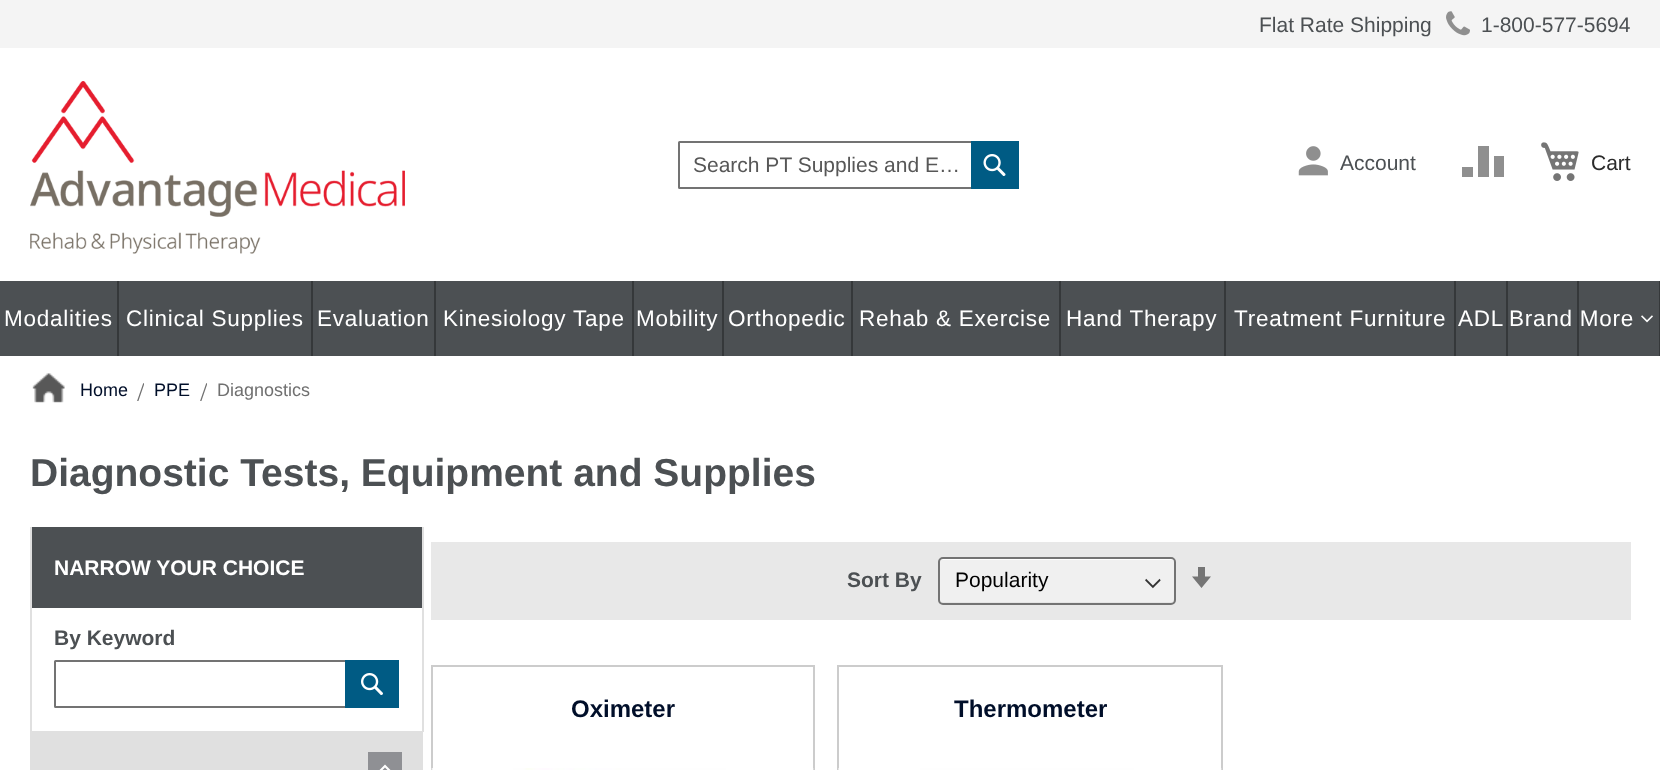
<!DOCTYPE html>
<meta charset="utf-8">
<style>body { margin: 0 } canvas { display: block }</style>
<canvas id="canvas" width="1660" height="770"></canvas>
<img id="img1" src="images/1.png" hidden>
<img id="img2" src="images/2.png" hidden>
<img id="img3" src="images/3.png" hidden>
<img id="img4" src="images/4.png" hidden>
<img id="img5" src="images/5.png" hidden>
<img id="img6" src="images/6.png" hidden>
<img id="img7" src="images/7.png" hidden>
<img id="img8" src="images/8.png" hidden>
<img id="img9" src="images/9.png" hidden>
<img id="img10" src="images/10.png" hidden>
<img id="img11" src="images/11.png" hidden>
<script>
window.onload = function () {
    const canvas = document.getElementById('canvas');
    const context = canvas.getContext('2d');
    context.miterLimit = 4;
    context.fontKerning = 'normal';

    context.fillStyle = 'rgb(255, 255, 255)';
    context.fillRect(0, 0, 1660, 770);
    context.fillStyle = 'rgb(244, 244, 244)';
    context.fillRect(0, 0, 1660, 48);
    context.drawImage(document.getElementById('img1'), 1446, 11, 24, 25);
    context.drawImage(document.getElementById('img2'), 30, 81, 375, 173);
    context.beginPath();
    context.roundRect(679, 142, 339, 46, 0.5);
    context.strokeStyle = 'rgb(115, 115, 115)';
    context.lineWidth = 2;
    context.stroke();
    context.fillStyle = 'rgb(0, 91, 132)';
    context.fillRect(971, 141, 48, 48);
    context.drawImage(document.getElementById('img3'), 983, 154, 23, 22);
    context.drawImage(document.getElementById('img4'), 1298, 146, 30, 30);
    context.fillStyle = 'rgb(143, 143, 143)';
    context.beginPath();
    context.moveTo(1473, 177);
    context.lineTo(1473, 167);
    context.lineTo(1462, 167);
    context.lineTo(1462, 177);
    context.closePath();
    context.moveTo(1489, 146);
    context.lineTo(1478, 146);
    context.lineTo(1478, 177);
    context.lineTo(1489, 177);
    context.closePath();
    context.moveTo(1504, 156);
    context.lineTo(1494, 156);
    context.lineTo(1494, 177);
    context.lineTo(1504, 177);
    context.closePath();
    context.fill();
    context.drawImage(document.getElementById('img5'), 1541, 142, 38, 39);
    context.fillStyle = 'rgb(76, 80, 83)';
    context.fillRect(0, 281, 1659, 75);
    context.fillStyle = 'rgb(53, 56, 58)';
    context.fillRect(117, 281, 2, 75);
    context.fillRect(311, 281, 2, 75);
    context.fillRect(434, 281, 2, 75);
    context.fillRect(632, 281, 2, 75);
    context.fillRect(722, 281, 2, 75);
    context.fillRect(851, 281, 2, 75);
    context.fillRect(1059, 281, 2, 75);
    context.fillRect(1224, 281, 2, 75);
    context.fillRect(1454, 281, 2, 75);
    context.fillRect(1506, 281, 2, 75);
    context.fillRect(1577, 281, 2, 75);
    context.fillRect(1659, 281, 1, 75);
    context.drawImage(document.getElementById('img6'), 1641, 315, 12, 8);
    context.drawImage(document.getElementById('img7'), 32, 373, 33, 30);
    context.fillStyle = 'rgb(224, 224, 224)';
    context.fillRect(422, 527, 2, 205);
    context.fillRect(30, 731, 393, 1);
    context.fillRect(30, 527, 2, 205);
    context.fillStyle = 'rgb(76, 80, 83)';
    context.fillRect(32, 527, 390, 81);
    context.beginPath();
    context.roundRect(55, 661, 343, 46, 0.5);
    context.stroke();
    context.fillStyle = 'rgb(0, 91, 132)';
    context.fillRect(345, 660, 54, 48);
    context.drawImage(document.getElementById('img8'), 361, 673, 22, 22);
    context.strokeStyle = 'rgb(224, 224, 224)';
    context.strokeRect(31, 733, 391, 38);
    context.fillStyle = 'rgb(224, 224, 224)';
    context.fillRect(32, 734, 389, 36);
    context.fillStyle = 'rgb(143, 144, 148)';
    context.fillRect(368, 752, 34, 18);
    context.fillStyle = 'rgb(255, 255, 255)';
    context.beginPath();
    context.moveTo(385, 767.5);
    context.lineTo(392.5, 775);
    context.lineTo(394, 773.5);
    context.lineTo(385, 764.5);
    context.lineTo(375.5, 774);
    context.lineTo(377, 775.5);
    context.closePath();
    context.fill();
    context.fillStyle = 'rgb(232, 232, 232)';
    context.fillRect(431, 542, 1200, 78);
    context.fillStyle = 'rgb(240, 240, 240)';
    context.beginPath();
    context.roundRect(939, 558, 236, 45, 3);
    context.fill();
    context.drawImage(document.getElementById('img9'), 1145, 578, 16, 11);
    context.fillStyle = 'rgba(204, 204, 204, 0.3)';
    context.beginPath();
    context.moveTo(939, 598);
    context.lineTo(939, 600);
    context.bezierCurveTo(939, 602, 940, 603, 942, 603);
    context.lineTo(1172, 603);
    context.bezierCurveTo(1174, 603, 1175, 602, 1175, 600);
    context.lineTo(1175, 561);
    context.bezierCurveTo(1175, 560, 1175, 559, 1174, 559);
    context.lineTo(1174, 598);
    context.bezierCurveTo(1174, 600, 1173, 602, 1172, 602);
    context.lineTo(942, 602);
    context.bezierCurveTo(940, 602, 939, 600, 939, 598);
    context.closePath();
    context.fill();
    context.fillStyle = 'rgb(255, 255, 255)';
    context.beginPath();
    context.moveTo(942, 560);
    context.lineTo(1172, 560);
    context.bezierCurveTo(1173, 560, 1174, 561, 1174, 562);
    context.lineTo(1174, 602);
    context.bezierCurveTo(1175, 602, 1175, 601, 1175, 600);
    context.lineTo(1175, 561);
    context.bezierCurveTo(1175, 559, 1174, 558, 1172, 558);
    context.lineTo(942, 558);
    context.bezierCurveTo(940, 558, 939, 559, 939, 561);
    context.lineTo(939, 562);
    context.bezierCurveTo(939, 561, 940, 560, 942, 560);
    context.closePath();
    context.fill();
    context.beginPath();
    context.roundRect(939, 558, 236, 46, 4);
    context.strokeStyle = 'rgb(115, 115, 115)';
    context.stroke();
    context.fillStyle = 'rgb(117, 117, 117)';
    context.beginPath();
    context.moveTo(1205, 576.5);
    context.lineTo(1205, 567);
    context.lineTo(1198, 567);
    context.lineTo(1198, 576.5);
    context.lineTo(1192, 576.5);
    context.lineTo(1201.5, 588);
    context.lineTo(1211, 576.5);
    context.closePath();
    context.fill();
    context.strokeStyle = 'rgb(204, 204, 204)';
    context.strokeRect(432, 666, 382, 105);
    context.drawImage(document.getElementById('img10'), 431, 768, 383, 2);
    context.strokeRect(838, 666, 384, 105);
    context.drawImage(document.getElementById('img11'), 838, 768, 384, 2);
    context.font = '21px Liberation Sans';
    context.fillStyle = 'rgb(76, 80, 83)';
    context.fillText('Flat Rate Shipping', 1259, 32);
    context.fillText('1-800-577-5694', 1481, 32);
    context.fillStyle = 'rgb(87, 87, 87)';
    context.fillText('Search PT Supplies and E…', 693, 172);
    context.fillStyle = 'rgb(76, 80, 83)';
    context.fillText('Account', 1340, 170);
    context.fillStyle = 'rgb(43, 43, 43)';
    context.fillText('Cart', 1591, 170);
    context.letterSpacing = '0.75px';
    context.font = '22.5px Liberation Sans';
    context.fillStyle = 'rgb(255, 255, 255)';
    context.fillText('Modalities', 4, 326);
    context.fillText('Clinical Supplies', 126, 326);
    context.fillText('Evaluation', 317, 326);
    context.fillText('Kinesiology Tape', 443, 326);
    context.fillText('Mobility', 636, 326);
    context.fillText('Orthopedic', 728, 326);
    context.fillText('Rehab & Exercise', 859, 326);
    context.fillText('Hand Therapy', 1066, 326);
    context.fillText('Treatment Furniture', 1234, 326);
    context.fillText('ADL', 1458, 326);
    context.fillText('Brand More', 1509, 326);
    context.letterSpacing = '0px';
    context.font = '18px Liberation Sans';
    context.fillStyle = 'rgb(0, 14, 41)';
    context.fillText('Home', 80, 396);
    context.save();
    context.beginPath();
    context.rect(137, 378, 7, 23);
    context.clip();
    context.font = '27px Liberation Serif';
    context.fillStyle = 'rgb(112, 112, 112)';
    context.fillText('/', 137, 401);
    context.restore();
    context.fillText('PPE', 154, 396);
    context.save();
    context.beginPath();
    context.rect(200, 378, 7, 23);
    context.clip();
    context.font = '27px Liberation Serif';
    context.fillStyle = 'rgb(112, 112, 112)';
    context.fillText('/', 200, 401);
    context.restore();
    context.fillStyle = 'rgb(112, 112, 112)';
    context.fillText('Diagnostics', 217, 396);
    context.font = 'bold 39px Liberation Sans';
    context.fillStyle = 'rgb(76, 80, 83)';
    context.fillText('Diagnostic Tests, Equipment and Supplies', 30, 486);
    context.font = 'bold 21px Liberation Sans';
    context.fillStyle = 'rgb(255, 255, 255)';
    context.fillText('NARROW YOUR CHOICE', 54, 575);
    context.fillStyle = 'rgb(76, 80, 83)';
    context.fillText('By Keyword', 54, 645);
    context.fillText('Sort By', 847, 587);
    context.font = '21px Liberation Sans';
    context.fillStyle = 'rgb(0, 0, 0)';
    context.fillText('Popularity', 955, 587);
    context.font = 'bold 24px Liberation Sans';
    context.fillStyle = 'rgb(0, 14, 41)';
    context.fillText('Oximeter', 571, 717);
    context.fillText('Thermometer', 954, 717);
};
</script>
